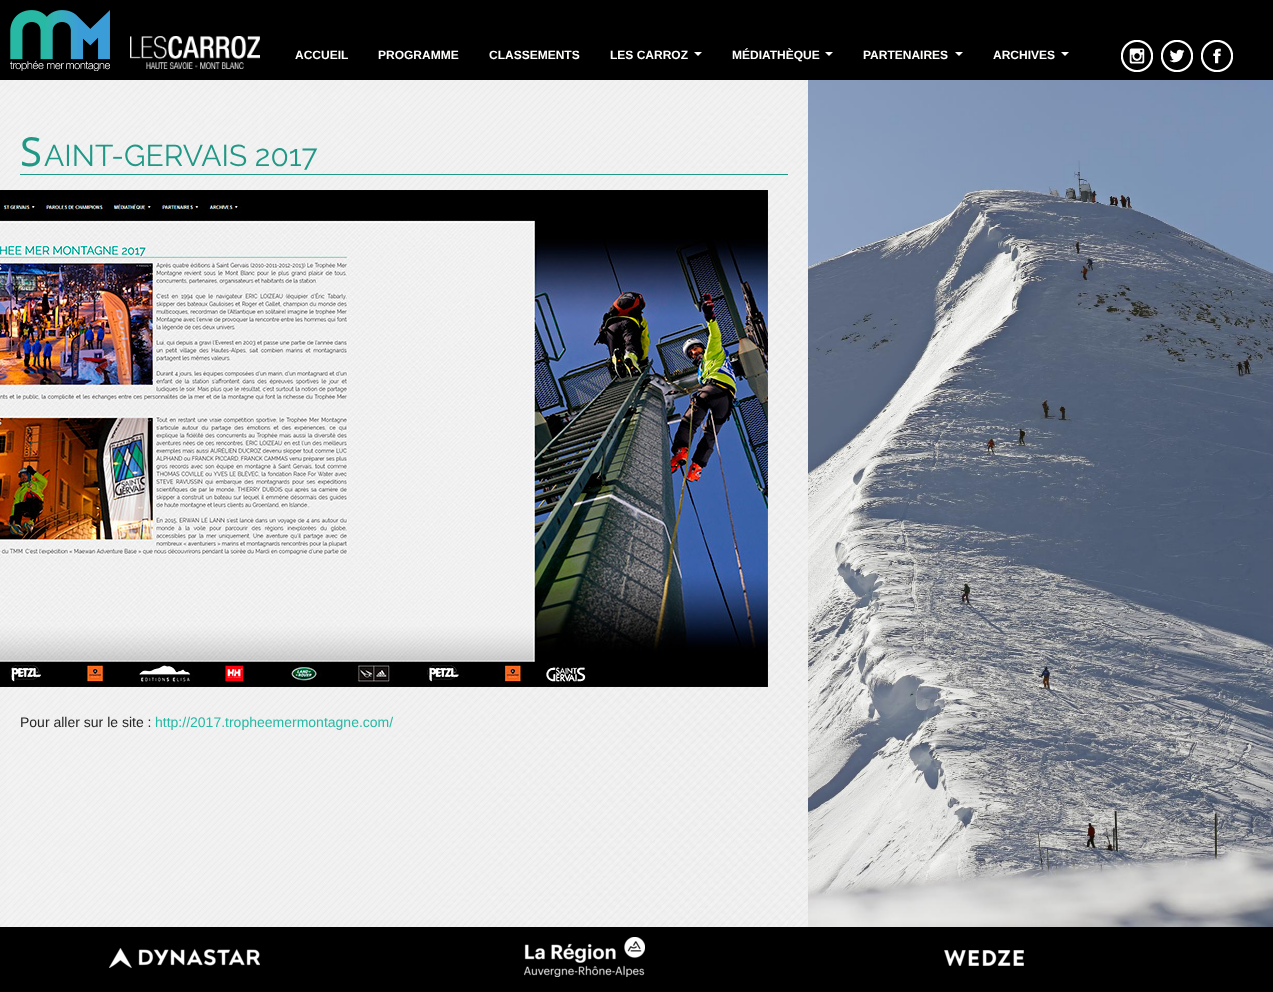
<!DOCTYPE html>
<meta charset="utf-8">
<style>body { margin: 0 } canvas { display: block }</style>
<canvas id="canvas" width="1273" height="992"></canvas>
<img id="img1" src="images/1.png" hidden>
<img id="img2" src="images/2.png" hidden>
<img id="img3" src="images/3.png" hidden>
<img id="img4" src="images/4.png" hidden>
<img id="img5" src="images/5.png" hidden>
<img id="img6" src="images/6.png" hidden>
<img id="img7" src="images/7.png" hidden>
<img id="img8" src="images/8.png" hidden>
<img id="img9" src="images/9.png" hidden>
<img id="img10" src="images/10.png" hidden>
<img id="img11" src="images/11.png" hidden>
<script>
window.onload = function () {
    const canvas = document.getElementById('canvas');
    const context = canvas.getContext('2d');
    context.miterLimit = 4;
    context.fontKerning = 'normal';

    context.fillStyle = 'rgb(255, 255, 255)';
    context.fillRect(0, 0, 1273, 992);
    context.drawImage(document.getElementById('img1'), 0, 80, 808, 847);
    context.fillStyle = 'rgb(0, 0, 0)';
    context.fillRect(0, 0, 1273, 80);
    context.drawImage(document.getElementById('img2'), 10, 10, 100, 61);
    context.drawImage(document.getElementById('img3'), 130, 36, 130, 33);
    context.fillStyle = 'rgb(255, 255, 253)';
    context.beginPath();
    context.moveTo(694, 52);
    context.lineTo(702, 52);
    context.lineTo(698, 56);
    context.closePath();
    context.fill();
    context.beginPath();
    context.moveTo(825, 52);
    context.lineTo(833, 52);
    context.lineTo(829, 56);
    context.closePath();
    context.fill();
    context.beginPath();
    context.moveTo(955, 52);
    context.lineTo(963, 52);
    context.lineTo(959, 56);
    context.closePath();
    context.fill();
    context.beginPath();
    context.moveTo(1061, 52);
    context.lineTo(1069, 52);
    context.lineTo(1065, 56);
    context.closePath();
    context.fill();
    context.drawImage(document.getElementById('img4'), 1121, 40, 32, 32);
    context.drawImage(document.getElementById('img5'), 1161, 40, 32, 32);
    context.drawImage(document.getElementById('img6'), 1201, 40, 32, 32);
    context.fillStyle = 'rgb(33, 152, 134)';
    context.fillRect(20, 174, 768, 1);
    context.drawImage(document.getElementById('img7'), 0, 190, 768, 497);
    context.fillStyle = 'rgb(0, 0, 0)';
    context.fillRect(0, 927, 1273, 65);
    context.drawImage(document.getElementById('img8'), 109, 948, 151, 20);
    context.drawImage(document.getElementById('img9'), 524, 937, 121, 40);
    context.drawImage(document.getElementById('img10'), 944, 950, 80, 16);
    context.drawImage(document.getElementById('img11'), 808, 80, 465, 847);
    context.font = 'bold 12px Liberation Sans';
    context.fillStyle = 'rgb(255, 255, 253)';
    context.fillText('ACCUEIL', 295, 59);
    context.fillText('PROGRAMME', 378, 59);
    context.fillText('CLASSEMENTS', 489, 59);
    context.fillText('LES CARROZ', 610, 59);
    context.fillText('MÉDIATHÈQUE', 732, 59);
    context.fillText('PARTENAIRES', 863, 59);
    context.fillText('ARCHIVES', 993, 59);
    context.font = '40px Noto Sans';
    context.fillStyle = 'rgb(33, 152, 134)';
    context.fillText('S', 20, 166);
    context.font = '30px Raleway';
    context.fillText('AINT-GERVAIS 2017', 44, 166);
    context.font = '14px Liberation Sans';
    context.fillStyle = 'rgb(38, 38, 38)';
    context.fillText('Pour aller sur le site :', 20, 727);
    context.fillStyle = 'rgb(40, 185, 164)';
    context.fillText('http://2017.tropheemermontagne.com/', 155, 727);
};
</script>
